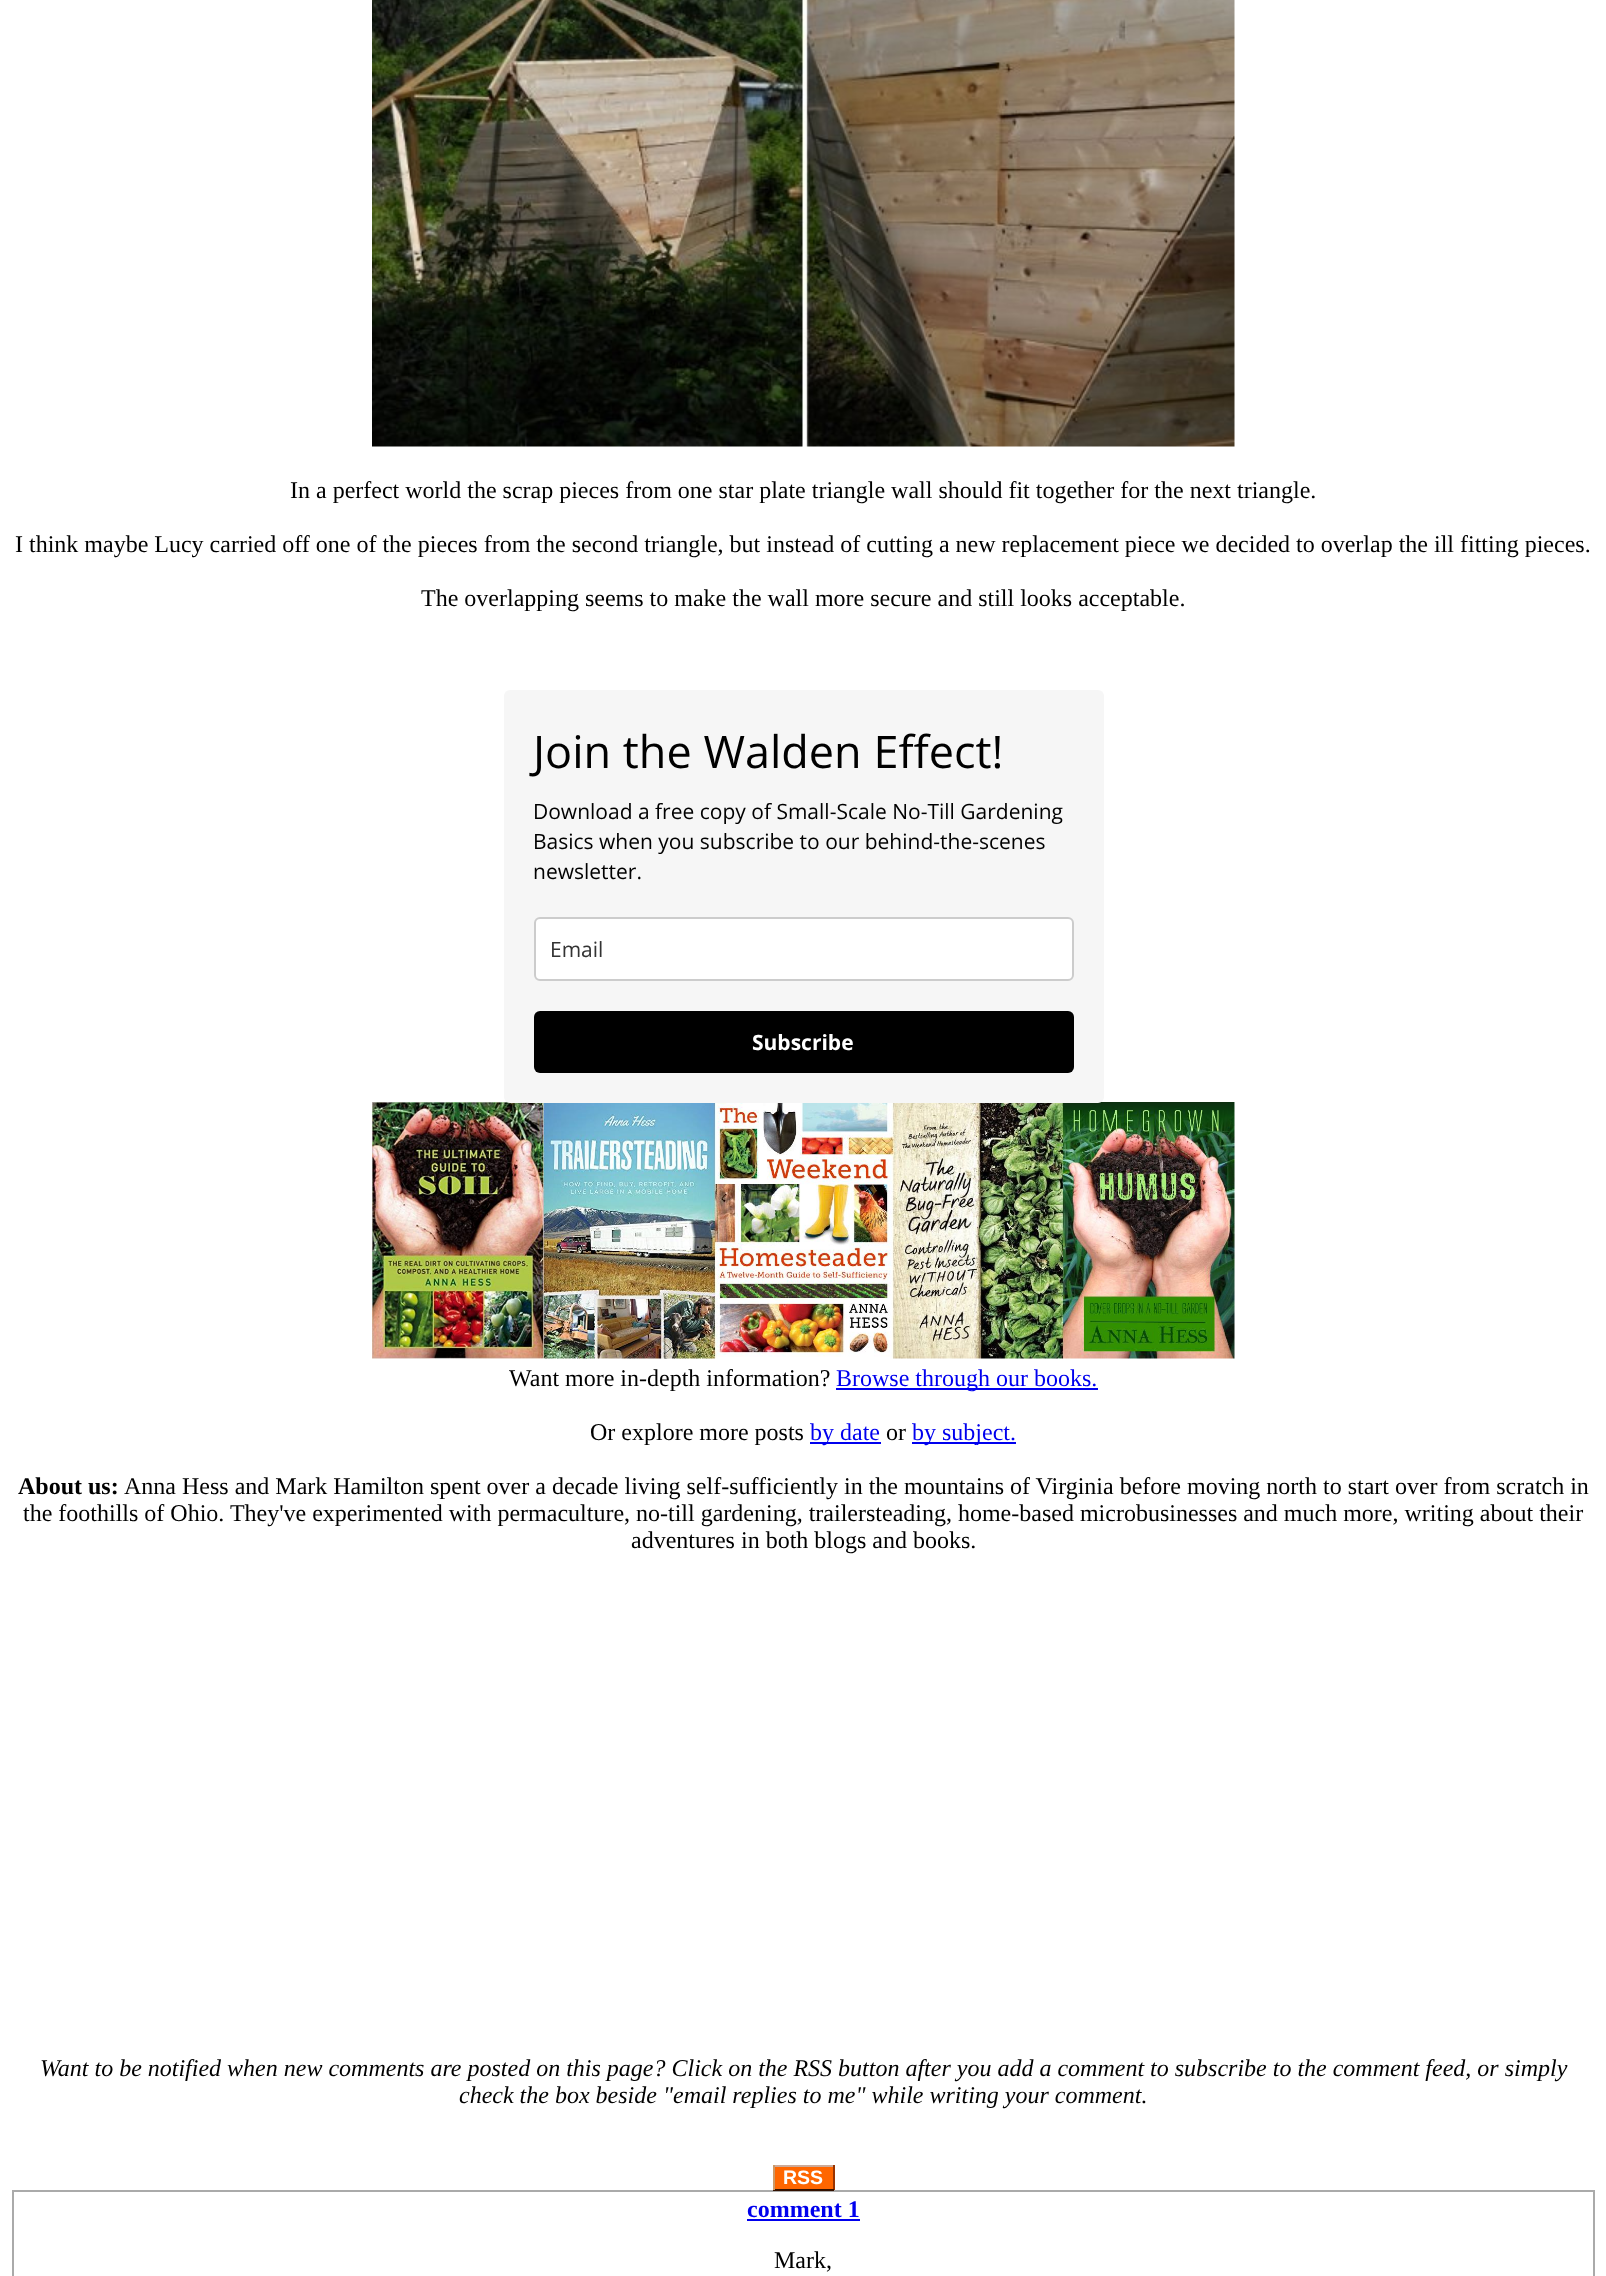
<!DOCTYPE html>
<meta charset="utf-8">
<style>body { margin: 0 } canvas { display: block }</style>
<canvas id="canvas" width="1606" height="2276"></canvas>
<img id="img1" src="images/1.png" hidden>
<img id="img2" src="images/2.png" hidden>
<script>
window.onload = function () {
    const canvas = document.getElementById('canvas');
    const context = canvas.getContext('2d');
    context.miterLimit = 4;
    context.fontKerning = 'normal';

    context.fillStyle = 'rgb(255, 255, 255)';
    context.fillRect(0, 0, 1606, 2276);
    context.drawImage(document.getElementById('img1'), 372, 0, 863, 447);
    context.drawImage(document.getElementById('img2'), 372, 1102, 863, 257);
    context.fillStyle = 'rgb(246, 246, 246)';
    context.beginPath();
    context.roundRect(504, 690, 600, 413, 6);
    context.fill();
    context.fillStyle = 'rgb(255, 255, 255)';
    context.beginPath();
    context.roundRect(535, 918, 538, 62, 5);
    context.fill();
    context.strokeStyle = 'rgb(204, 204, 204)';
    context.lineWidth = 2;
    context.stroke();
    context.fillStyle = 'rgb(0, 0, 0)';
    context.beginPath();
    context.roundRect(534, 1011, 540, 62, 6);
    context.fill();
    context.fillStyle = 'rgb(0, 0, 238)';
    context.fillRect(836, 1388, 262, 2);
    context.fillRect(810, 1442, 71, 2);
    context.fillRect(912, 1442, 104, 2);
    context.fillStyle = 'rgb(255, 102, 0)';
    context.fillRect(775, 2167, 58, 22);
    context.fillStyle = 'rgb(204, 170, 153)';
    context.fillRect(773, 2165, 61, 2);
    context.fillStyle = 'rgb(153, 51, 0)';
    context.fillRect(833, 2165, 2, 25);
    context.strokeStyle = 'rgb(170, 170, 170)';
    context.strokeRect(13, 2191, 1581, 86);
    context.fillStyle = 'rgb(51, 17, 0)';
    context.fillRect(773, 2189, 61, 2);
    context.fillStyle = 'rgb(204, 153, 102)';
    context.fillRect(773, 2165, 2, 25);
    context.fillStyle = 'rgb(0, 0, 238)';
    context.fillRect(747, 2219, 113, 2);
    context.font = '24px Liberation Serif';
    context.fillStyle = 'rgb(0, 0, 0)';
    context.fillText('In a perfect world the scrap pieces from one star plate triangle wall should fit together for the next triangle.', 290, 498);
    context.fillText('I think maybe Lucy carried off one of the pieces from the second triangle, but instead of cutting a new replacement piece we decided to overlap the ill fitting pieces.', 15, 552);
    context.fillText('The overlapping seems to make the wall more secure and still looks acceptable.', 421, 606);
    context.font = '45px Open Sans';
    context.fillText('Join the Walden Effect!', 533, 768);
    context.font = '21px Open Sans';
    context.fillText('Download a free copy of Small-Scale No-Till Gardening', 533, 819);
    context.fillText('Basics when you subscribe to our behind-the-scenes', 533, 849);
    context.fillText('newsletter.', 533, 879);
    context.fillStyle = 'rgb(51, 51, 51)';
    context.fillText('Email', 550, 957);
    context.font = 'bold 21px Open Sans';
    context.fillStyle = 'rgb(255, 255, 255)';
    context.fillText('Subscribe', 752, 1050);
    context.font = '24px Liberation Serif';
    context.fillStyle = 'rgb(0, 0, 0)';
    context.fillText('Want more in-depth information?', 509, 1386);
    context.fillStyle = 'rgb(0, 0, 238)';
    context.fillText('Browse through our books.', 836, 1386);
    context.fillStyle = 'rgb(0, 0, 0)';
    context.fillText('Or explore more posts', 590, 1440);
    context.fillStyle = 'rgb(0, 0, 238)';
    context.fillText('by date', 810, 1440);
    context.fillStyle = 'rgb(0, 0, 0)';
    context.fillText('or', 886, 1440);
    context.fillStyle = 'rgb(0, 0, 238)';
    context.fillText('by subject.', 912, 1440);
    context.font = 'bold 24px Liberation Serif';
    context.fillStyle = 'rgb(0, 0, 0)';
    context.fillText('About us:', 18, 1494);
    context.font = '24px Liberation Serif';
    context.fillText('Anna Hess and Mark Hamilton spent over a decade living self-sufficiently in the mountains of Virginia before moving north to start over from scratch in', 124, 1494);
    context.fillText('the foothills of Ohio. They\'ve experimented with permaculture, no-till gardening, trailersteading, home-based microbusinesses and much more, writing about their', 23, 1521);
    context.fillText('adventures in both blogs and books.', 631, 1548);
    context.font = 'italic 24px Liberation Serif';
    context.fillText('Want to be notified when new comments are posted on this page? Click on the RSS button after you add a comment to subscribe to the comment feed, or simply', 40, 2076);
    context.fillText('check the box beside "email replies to me" while writing your comment.', 459, 2103);
    context.font = 'bold 19.5px Liberation Sans';
    context.fillStyle = 'rgb(255, 255, 255)';
    context.fillText('RSS', 783, 2184);
    context.font = 'bold 24px Liberation Serif';
    context.fillStyle = 'rgb(0, 0, 238)';
    context.fillText('comment 1', 747, 2217);
    context.font = '24px Liberation Serif';
    context.fillStyle = 'rgb(0, 0, 0)';
    context.fillText('Mark,', 774, 2268);
};
</script>
